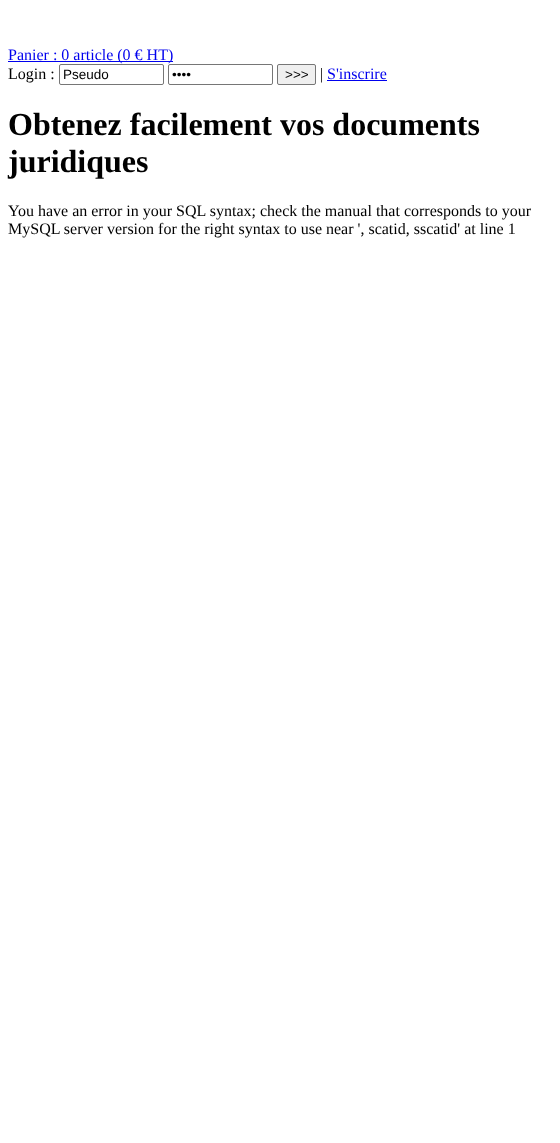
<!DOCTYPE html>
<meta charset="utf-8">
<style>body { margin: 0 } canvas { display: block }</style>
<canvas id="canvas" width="560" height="1143"></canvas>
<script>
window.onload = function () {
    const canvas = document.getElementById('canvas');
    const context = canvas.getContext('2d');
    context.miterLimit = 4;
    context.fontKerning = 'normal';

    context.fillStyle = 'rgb(255, 255, 255)';
    context.fillRect(0, 0, 560, 1143);
    context.fillStyle = 'rgb(0, 0, 238)';
    context.fillRect(8, 61, 165, 1);
    context.beginPath();
    context.roundRect(59.5, 64.5, 104, 20, 1.5);
    context.strokeStyle = 'rgb(118, 118, 118)';
    context.stroke();
    context.beginPath();
    context.roundRect(168.5, 64.5, 104, 20, 1.5);
    context.stroke();
    context.fillStyle = 'rgb(239, 239, 239)';
    context.beginPath();
    context.roundRect(277.5, 64.5, 38, 20, 1.5);
    context.fill();
    context.stroke();
    context.fillStyle = 'rgb(0, 0, 238)';
    context.fillRect(327, 80, 60, 1);
    context.font = '16px Liberation Serif';
    context.fillText('Panier : 0 article (0 € HT)', 8, 60);
    context.fillStyle = 'rgb(0, 0, 0)';
    context.fillText('Login :', 8, 79);
    context.font = '13.5px Liberation Sans';
    context.fillText('Pseudo', 63, 79);
    context.fillText('••••', 172, 79);
    context.fillText('>>>', 285, 79);
    context.font = '16px Liberation Serif';
    context.fillText('|', 320, 79);
    context.fillStyle = 'rgb(0, 0, 238)';
    context.fillText('S\'inscrire', 327, 79);
    context.font = 'bold 32px Liberation Serif';
    context.fillStyle = 'rgb(0, 0, 0)';
    context.fillText('Obtenez facilement vos documents', 8, 135);
    context.fillText('juridiques', 8, 172);
    context.font = '16px Liberation Serif';
    context.fillText('You have an error in your SQL syntax; check the manual that corresponds to your', 8, 216);
    context.fillText('MySQL server version for the right syntax to use near \', scatid, sscatid\' at line 1', 8, 234);
};
</script>
